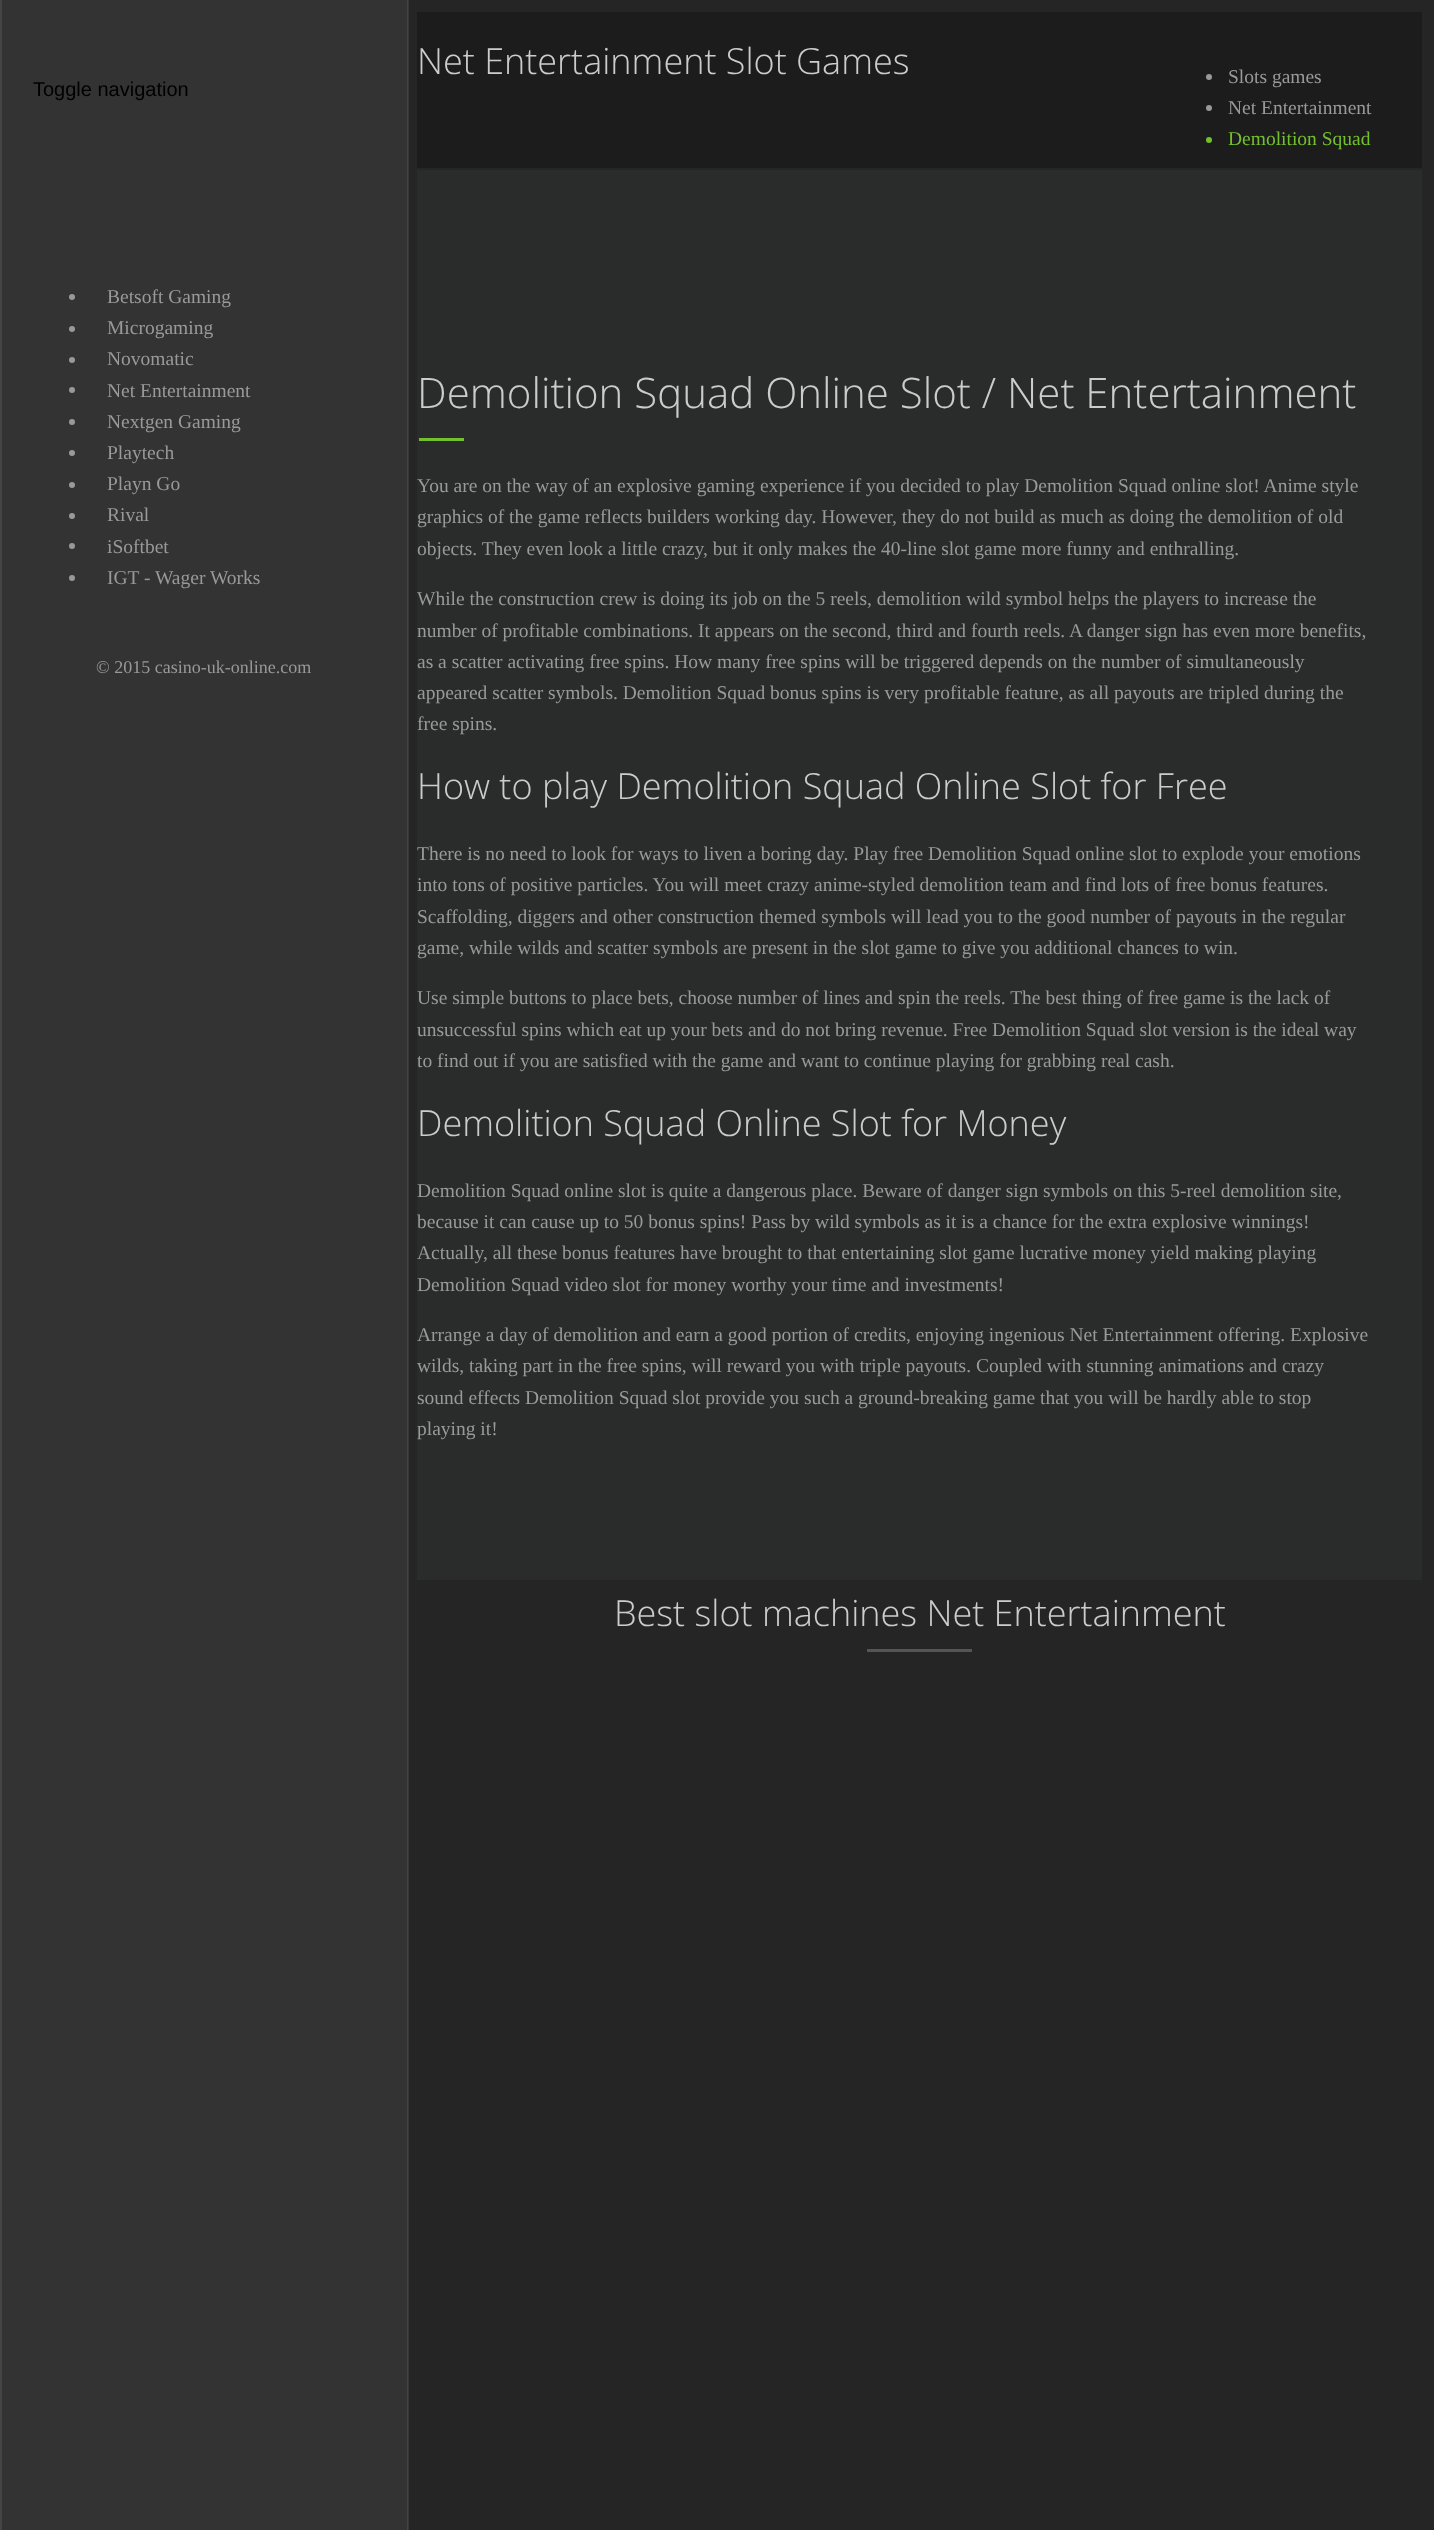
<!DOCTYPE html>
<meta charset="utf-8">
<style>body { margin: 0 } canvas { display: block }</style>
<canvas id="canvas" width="1434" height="2530"></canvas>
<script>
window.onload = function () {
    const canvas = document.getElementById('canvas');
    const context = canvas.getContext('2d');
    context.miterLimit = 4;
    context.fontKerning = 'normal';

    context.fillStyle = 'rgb(37, 37, 37)';
    context.fillRect(0, 0, 1434, 2530);
    context.fillStyle = 'rgb(55, 55, 55)';
    context.fillRect(408, 0, 1, 2530);
    context.fillStyle = 'rgb(51, 51, 51)';
    context.fillRect(2, 0, 405, 2530);
    context.fillStyle = 'rgb(68, 68, 68)';
    context.fillRect(407, 0, 1, 2530);
    context.fillRect(0, 0, 2, 2530);
    context.fillStyle = 'rgb(153, 153, 153)';
    context.beginPath();
    context.arc(72, 297, 3, 0, 2 * Math.PI);
    context.fill();
    context.beginPath();
    context.arc(72, 329, 3, 0, 2 * Math.PI);
    context.fill();
    context.beginPath();
    context.arc(72, 360, 3, 0, 2 * Math.PI);
    context.fill();
    context.beginPath();
    context.arc(72, 390, 3, 0, 2 * Math.PI);
    context.fill();
    context.beginPath();
    context.arc(72, 422, 3, 0, 2 * Math.PI);
    context.fill();
    context.beginPath();
    context.arc(72, 453, 3, 0, 2 * Math.PI);
    context.fill();
    context.beginPath();
    context.arc(72, 485, 3, 0, 2 * Math.PI);
    context.fill();
    context.beginPath();
    context.arc(72, 516, 3, 0, 2 * Math.PI);
    context.fill();
    context.beginPath();
    context.arc(72, 546, 3, 0, 2 * Math.PI);
    context.fill();
    context.beginPath();
    context.arc(72, 578, 3, 0, 2 * Math.PI);
    context.fill();
    context.fillStyle = 'rgb(28, 28, 28)';
    context.fillRect(417, 12, 1005, 156);
    context.fillStyle = 'rgb(153, 153, 153)';
    context.beginPath();
    context.arc(1209, 77, 3, 0, 2 * Math.PI);
    context.fill();
    context.beginPath();
    context.arc(1209, 108, 3, 0, 2 * Math.PI);
    context.fill();
    context.fillStyle = 'rgb(114, 192, 44)';
    context.beginPath();
    context.arc(1209, 140, 3, 0, 2 * Math.PI);
    context.fill();
    context.fillStyle = 'rgb(42, 43, 43)';
    context.fillRect(417, 170, 1005, 1410);
    context.fillStyle = 'rgb(114, 192, 44)';
    context.fillRect(419, 438, 45, 3);
    context.fillStyle = 'rgb(85, 85, 85)';
    context.fillRect(867, 1649, 105, 3);
    context.font = '20px Liberation Sans';
    context.fillStyle = 'rgb(0, 0, 0)';
    context.fillText('Toggle navigation', 33, 96);
    context.font = '19.5px Liberation Serif';
    context.fillStyle = 'rgb(153, 153, 153)';
    context.fillText('Betsoft Gaming', 107, 303);
    context.fillText('Microgaming', 107, 334);
    context.fillText('Novomatic', 107, 365);
    context.fillText('Net Entertainment', 107, 397);
    context.fillText('Nextgen Gaming', 107, 428);
    context.fillText('Playtech', 107, 459);
    context.fillText('Playn Go', 107, 490);
    context.fillText('Rival', 107, 521);
    context.fillText('iSoftbet', 107, 553);
    context.fillText('IGT - Wager Works', 107, 584);
    context.font = '18px Liberation Serif';
    context.fillText('© 2015 casino-uk-online.com', 96, 673);
    context.font = '300 36px Open Sans';
    context.fillStyle = 'rgb(204, 204, 204)';
    context.fillText('Net Entertainment Slot Games', 417, 74);
    context.font = '19.5px Liberation Serif';
    context.fillStyle = 'rgb(153, 153, 153)';
    context.fillText('Slots games', 1228, 83);
    context.fillText('Net Entertainment', 1228, 114);
    context.fillStyle = 'rgb(114, 192, 44)';
    context.fillText('Demolition Squad', 1228, 145);
    context.font = '300 42px Open Sans';
    context.fillStyle = 'rgb(204, 204, 204)';
    context.fillText('Demolition Squad Online Slot / Net Entertainment', 417, 408);
    context.font = '19.5px Liberation Serif';
    context.fillStyle = 'rgb(153, 153, 153)';
    context.fillText('You are on the way of an explosive gaming experience if you decided to play Demolition Squad online slot! Anime style', 417, 492);
    context.fillText('graphics of the game reflects builders working day. However, they do not build as much as doing the demolition of old', 417, 523);
    context.fillText('objects. They even look a little crazy, but it only makes the 40-line slot game more funny and enthralling.', 417, 555);
    context.fillText('While the construction crew is doing its job on the 5 reels, demolition wild symbol helps the players to increase the', 417, 605);
    context.fillText('number of profitable combinations. It appears on the second, third and fourth reels. A danger sign has even more benefits,', 417, 637);
    context.fillText('as a scatter activating free spins. How many free spins will be triggered depends on the number of simultaneously', 417, 668);
    context.fillText('appeared scatter symbols. Demolition Squad bonus spins is very profitable feature, as all payouts are tripled during the', 417, 699);
    context.fillText('free spins.', 417, 730);
    context.font = '300 36px Open Sans';
    context.fillStyle = 'rgb(204, 204, 204)';
    context.fillText('How to play Demolition Squad Online Slot for Free', 417, 799);
    context.font = '19.5px Liberation Serif';
    context.fillStyle = 'rgb(153, 153, 153)';
    context.fillText('There is no need to look for ways to liven a boring day. Play free Demolition Squad online slot to explode your emotions', 417, 860);
    context.fillText('into tons of positive particles. You will meet crazy anime-styled demolition team and find lots of free bonus features.', 417, 891);
    context.fillText('Scaffolding, diggers and other construction themed symbols will lead you to the good number of payouts in the regular', 417, 923);
    context.fillText('game, while wilds and scatter symbols are present in the slot game to give you additional chances to win.', 417, 954);
    context.fillText('Use simple buttons to place bets, choose number of lines and spin the reels. The best thing of free game is the lack of', 417, 1004);
    context.fillText('unsuccessful spins which eat up your bets and do not bring revenue. Free Demolition Squad slot version is the ideal way', 417, 1036);
    context.fillText('to find out if you are satisfied with the game and want to continue playing for grabbing real cash.', 417, 1067);
    context.font = '300 36px Open Sans';
    context.fillStyle = 'rgb(204, 204, 204)';
    context.fillText('Demolition Squad Online Slot for Money', 417, 1136);
    context.font = '19.5px Liberation Serif';
    context.fillStyle = 'rgb(153, 153, 153)';
    context.fillText('Demolition Squad online slot is quite a dangerous place. Beware of danger sign symbols on this 5-reel demolition site,', 417, 1197);
    context.fillText('because it can cause up to 50 bonus spins! Pass by wild symbols as it is a chance for the extra explosive winnings!', 417, 1228);
    context.fillText('Actually, all these bonus features have brought to that entertaining slot game lucrative money yield making playing', 417, 1259);
    context.fillText('Demolition Squad video slot for money worthy your time and investments!', 417, 1291);
    context.fillText('Arrange a day of demolition and earn a good portion of credits, enjoying ingenious Net Entertainment offering. Explosive', 417, 1341);
    context.fillText('wilds, taking part in the free spins, will reward you with triple payouts. Coupled with stunning animations and crazy', 417, 1372);
    context.fillText('sound effects Demolition Squad slot provide you such a ground-breaking game that you will be hardly able to stop', 417, 1404);
    context.fillText('playing it!', 417, 1435);
    context.font = '300 36px Open Sans';
    context.fillStyle = 'rgb(204, 204, 204)';
    context.fillText('Best slot machines Net Entertainment', 614, 1626);
};
</script>
